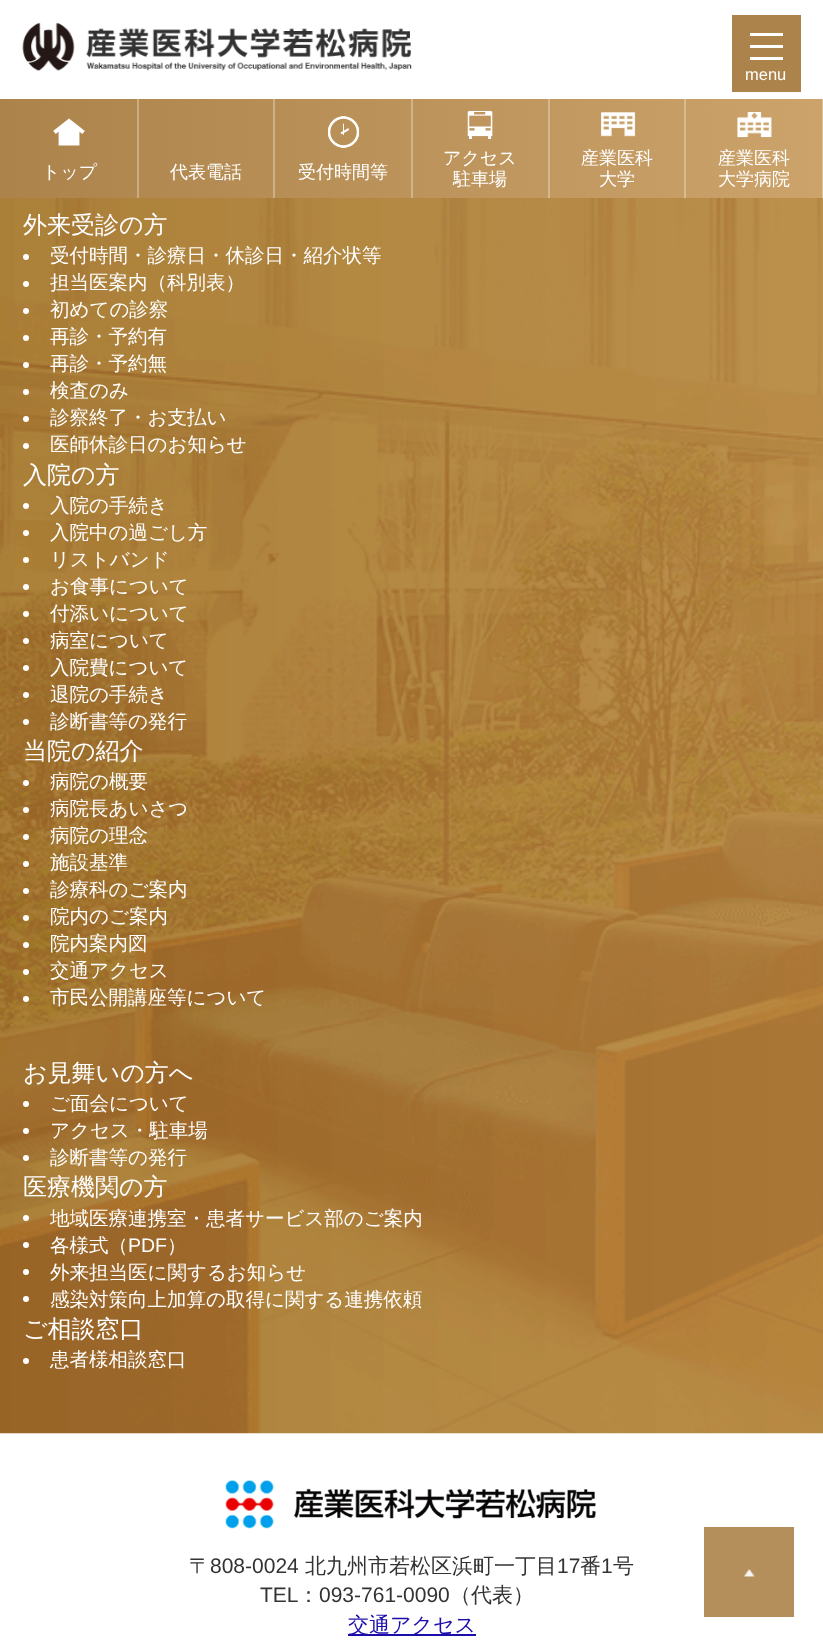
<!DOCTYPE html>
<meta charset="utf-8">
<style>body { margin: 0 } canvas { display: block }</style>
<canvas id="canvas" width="823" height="1646"></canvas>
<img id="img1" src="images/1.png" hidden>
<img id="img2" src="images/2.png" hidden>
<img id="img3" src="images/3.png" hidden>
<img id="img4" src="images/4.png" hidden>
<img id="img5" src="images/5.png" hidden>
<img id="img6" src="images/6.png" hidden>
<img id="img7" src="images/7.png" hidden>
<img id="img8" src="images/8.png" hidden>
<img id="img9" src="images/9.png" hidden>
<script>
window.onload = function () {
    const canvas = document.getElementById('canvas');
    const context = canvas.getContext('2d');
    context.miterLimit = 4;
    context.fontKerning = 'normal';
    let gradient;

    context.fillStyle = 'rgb(255, 255, 255)';
    context.fillRect(0, 0, 823, 1646);
    context.drawImage(document.getElementById('img1'), 22, 22, 390, 49);
    context.fillStyle = 'rgb(172, 131, 74)';
    context.fillRect(732, 15, 69, 77);
    context.fillStyle = 'rgb(255, 255, 255)';
    context.fillRect(750, 33, 33, 3);
    context.fillRect(750, 45, 33, 3);
    context.fillRect(750, 57, 33, 3);
    gradient = context.createLinearGradient(0, 149, 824, 148);
    gradient.addColorStop(0, 'rgb(172, 131, 74)');
    gradient.addColorStop(1, 'rgb(204, 163, 106)');
    context.fillStyle = gradient;
    context.fillRect(0, 99, 822, 99);
    context.drawImage(document.getElementById('img2'), 53, 118, 32, 28);
    context.fillStyle = 'rgb(200, 172, 132)';
    context.fillRect(137, 99, 2, 99);
    context.fillStyle = 'rgb(205, 176, 136)';
    context.fillRect(273, 99, 2, 99);
    context.drawImage(document.getElementById('img3'), 328, 116, 32, 32);
    context.fillStyle = 'rgb(208, 179, 140)';
    context.fillRect(411, 99, 2, 99);
    context.drawImage(document.getElementById('img4'), 467, 111, 26, 28);
    context.fillStyle = 'rgb(212, 183, 143)';
    context.fillRect(548, 99, 2, 99);
    context.drawImage(document.getElementById('img5'), 601, 112, 35, 25);
    context.fillStyle = 'rgb(216, 187, 147)';
    context.fillRect(684, 99, 2, 99);
    context.drawImage(document.getElementById('img6'), 737, 112, 35, 26);
    context.fillStyle = 'rgb(219, 191, 151)';
    context.fillRect(822, 99, 1, 99);
    context.drawImage(document.getElementById('img7'), 0, 198, 823, 1236);
    context.fillStyle = 'rgb(255, 255, 255)';
    context.beginPath();
    context.arc(26, 257, 3, 0, 2 * Math.PI);
    context.fill();
    context.beginPath();
    context.arc(26, 284, 3, 0, 2 * Math.PI);
    context.fill();
    context.beginPath();
    context.arc(26, 311, 3, 0, 2 * Math.PI);
    context.fill();
    context.beginPath();
    context.arc(26, 338, 3, 0, 2 * Math.PI);
    context.fill();
    context.beginPath();
    context.arc(26, 365, 3, 0, 2 * Math.PI);
    context.fill();
    context.beginPath();
    context.arc(26, 392, 3, 0, 2 * Math.PI);
    context.fill();
    context.beginPath();
    context.arc(26, 419, 3, 0, 2 * Math.PI);
    context.fill();
    context.beginPath();
    context.arc(26, 446, 3, 0, 2 * Math.PI);
    context.fill();
    context.beginPath();
    context.arc(26, 506, 3, 0, 2 * Math.PI);
    context.fill();
    context.beginPath();
    context.arc(26, 533, 3, 0, 2 * Math.PI);
    context.fill();
    context.beginPath();
    context.arc(26, 560, 3, 0, 2 * Math.PI);
    context.fill();
    context.beginPath();
    context.arc(26, 587, 3, 0, 2 * Math.PI);
    context.fill();
    context.beginPath();
    context.arc(26, 614, 3, 0, 2 * Math.PI);
    context.fill();
    context.beginPath();
    context.arc(26, 641, 3, 0, 2 * Math.PI);
    context.fill();
    context.beginPath();
    context.arc(26, 668, 3, 0, 2 * Math.PI);
    context.fill();
    context.beginPath();
    context.arc(26, 695, 3, 0, 2 * Math.PI);
    context.fill();
    context.beginPath();
    context.arc(26, 722, 3, 0, 2 * Math.PI);
    context.fill();
    context.beginPath();
    context.arc(26, 783, 3, 0, 2 * Math.PI);
    context.fill();
    context.beginPath();
    context.arc(26, 810, 3, 0, 2 * Math.PI);
    context.fill();
    context.beginPath();
    context.arc(26, 837, 3, 0, 2 * Math.PI);
    context.fill();
    context.beginPath();
    context.arc(26, 864, 3, 0, 2 * Math.PI);
    context.fill();
    context.beginPath();
    context.arc(26, 891, 3, 0, 2 * Math.PI);
    context.fill();
    context.beginPath();
    context.arc(26, 918, 3, 0, 2 * Math.PI);
    context.fill();
    context.beginPath();
    context.arc(26, 945, 3, 0, 2 * Math.PI);
    context.fill();
    context.beginPath();
    context.arc(26, 972, 3, 0, 2 * Math.PI);
    context.fill();
    context.beginPath();
    context.arc(26, 999, 3, 0, 2 * Math.PI);
    context.fill();
    context.beginPath();
    context.arc(26, 1104, 3, 0, 2 * Math.PI);
    context.fill();
    context.beginPath();
    context.arc(26, 1131, 3, 0, 2 * Math.PI);
    context.fill();
    context.beginPath();
    context.arc(26, 1158, 3, 0, 2 * Math.PI);
    context.fill();
    context.beginPath();
    context.arc(26, 1218, 3, 0, 2 * Math.PI);
    context.fill();
    context.beginPath();
    context.arc(26, 1245, 3, 0, 2 * Math.PI);
    context.fill();
    context.beginPath();
    context.arc(26, 1272, 3, 0, 2 * Math.PI);
    context.fill();
    context.beginPath();
    context.arc(26, 1299, 3, 0, 2 * Math.PI);
    context.fill();
    context.beginPath();
    context.arc(26, 1361, 3, 0, 2 * Math.PI);
    context.fill();
    context.drawImage(document.getElementById('img8'), 225, 1479, 372, 50);
    context.fillStyle = 'rgb(26, 13, 171)';
    context.fillRect(348, 1634, 128, 2);
    context.fillStyle = 'rgb(180, 143, 92)';
    context.fillRect(704, 1527, 90, 90);
    context.drawImage(document.getElementById('img9'), 743, 1569, 12, 8);
    context.font = '16.5px Liberation Sans';
    context.fillStyle = 'rgb(255, 255, 255)';
    context.fillText('menu', 745, 80);
    context.font = '500 18px WenQuanYi Zen Hei';
    context.fillText('トップ', 42, 178);
    context.fillText('代表電話', 170, 178);
    context.fillText('受付時間等', 298, 178);
    context.fillText('アクセス', 443, 164);
    context.fillText('駐車場', 453, 185);
    context.fillText('産業医科', 581, 164);
    context.fillText('大学', 599, 185);
    context.fillText('産業医科', 718, 164);
    context.fillText('大学病院', 718, 185);
    context.font = '500 24px WenQuanYi Zen Hei';
    context.fillText('外来受診の方', 23, 233);
    context.font = '500 19.5px WenQuanYi Zen Hei';
    context.fillText('受付時間・診療日・休診日・紹介状等', 50, 262);
    context.fillText('担当医案内（科別表）', 50, 289);
    context.fillText('初めての診察', 50, 316);
    context.fillText('再診・予約有', 50, 343);
    context.fillText('再診・予約無', 50, 370);
    context.fillText('検査のみ', 50, 397);
    context.fillText('診察終了・お支払い', 50, 424);
    context.fillText('医師休診日のお知らせ', 50, 451);
    context.font = '500 24px WenQuanYi Zen Hei';
    context.fillText('入院の方', 23, 483);
    context.font = '500 19.5px WenQuanYi Zen Hei';
    context.fillText('入院の手続き', 50, 512);
    context.fillText('入院中の過ごし方', 50, 539);
    context.fillText('リストバンド', 50, 566);
    context.fillText('お食事について', 50, 593);
    context.fillText('付添いについて', 50, 620);
    context.fillText('病室について', 50, 647);
    context.fillText('入院費について', 50, 674);
    context.fillText('退院の手続き', 50, 701);
    context.fillText('診断書等の発行', 50, 728);
    context.font = '500 24px WenQuanYi Zen Hei';
    context.fillText('当院の紹介', 23, 759);
    context.font = '500 19.5px WenQuanYi Zen Hei';
    context.fillText('病院の概要', 50, 788);
    context.fillText('病院長あいさつ', 50, 815);
    context.fillText('病院の理念', 50, 842);
    context.fillText('施設基準', 50, 869);
    context.fillText('診療科のご案内', 50, 896);
    context.fillText('院内のご案内', 50, 923);
    context.fillText('院内案内図', 50, 950);
    context.fillText('交通アクセス', 50, 977);
    context.fillText('市民公開講座等について', 50, 1004);
    context.font = '500 24px WenQuanYi Zen Hei';
    context.fillText('お見舞いの方へ', 23, 1081);
    context.font = '500 19.5px WenQuanYi Zen Hei';
    context.fillText('ご面会について', 50, 1110);
    context.fillText('アクセス・駐車場', 50, 1137);
    context.fillText('診断書等の発行', 50, 1164);
    context.font = '500 24px WenQuanYi Zen Hei';
    context.fillText('医療機関の方', 23, 1195);
    context.font = '500 19.5px WenQuanYi Zen Hei';
    context.fillText('地域医療連携室・患者サービス部のご案内', 50, 1225);
    context.fillText('各様式（', 50, 1252);
    context.font = '19.5px Liberation Sans';
    context.fillText('PDF', 128, 1252);
    context.font = '500 19.5px WenQuanYi Zen Hei';
    context.fillText('）', 167, 1252);
    context.fillText('外来担当医に関するお知らせ', 50, 1279);
    context.fillText('感染対策向上加算の取得に関する連携依頼', 50, 1306);
    context.font = '500 24px WenQuanYi Zen Hei';
    context.fillText('ご相談窓口', 23, 1337);
    context.font = '500 19.5px WenQuanYi Zen Hei';
    context.fillText('患者様相談窓口', 50, 1366);
    context.font = '500 21px WenQuanYi Zen Hei';
    context.fillStyle = 'rgb(51, 51, 51)';
    context.fillText('〒', 189, 1573);
    context.font = '21px Liberation Sans';
    context.fillText('808-0024', 210, 1573);
    context.font = '500 21px WenQuanYi Zen Hei';
    context.fillText('北九州市若松区浜町一丁目', 305, 1573);
    context.font = '21px Liberation Sans';
    context.fillText('17', 557, 1573);
    context.font = '500 21px WenQuanYi Zen Hei';
    context.fillText('番', 580, 1573);
    context.font = '21px Liberation Sans';
    context.fillText('1', 601, 1573);
    context.font = '500 21px WenQuanYi Zen Hei';
    context.fillText('号', 613, 1573);
    context.font = '21px Liberation Sans';
    context.fillText('TEL', 260, 1602);
    context.font = '500 21px WenQuanYi Zen Hei';
    context.fillText('：', 298, 1602);
    context.font = '21px Liberation Sans';
    context.fillText('093-761-0090', 319, 1602);
    context.font = '500 21px WenQuanYi Zen Hei';
    context.fillText('（代表）', 450, 1602);
    context.fillStyle = 'rgb(26, 13, 171)';
    context.fillText('交通アクセス', 348, 1632);
};
</script>
